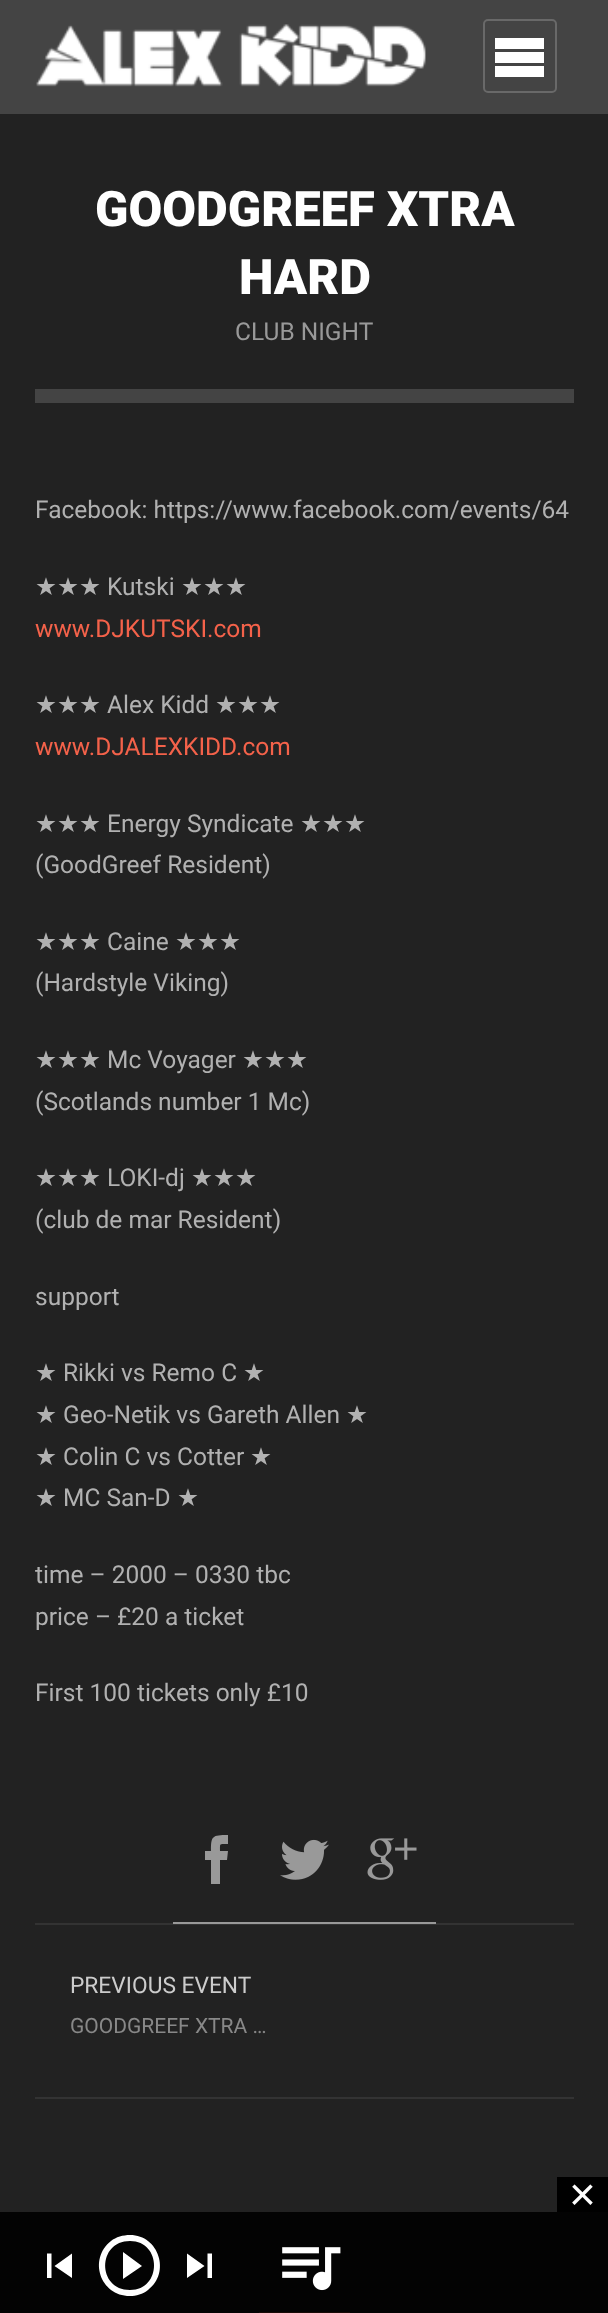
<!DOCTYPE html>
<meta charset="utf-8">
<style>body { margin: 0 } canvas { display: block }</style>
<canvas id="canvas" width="608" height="2313"></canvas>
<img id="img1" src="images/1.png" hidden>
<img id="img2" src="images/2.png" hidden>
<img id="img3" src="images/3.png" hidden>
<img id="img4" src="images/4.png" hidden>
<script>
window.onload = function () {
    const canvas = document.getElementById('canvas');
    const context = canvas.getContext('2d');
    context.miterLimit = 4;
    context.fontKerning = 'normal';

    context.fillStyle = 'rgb(34, 34, 34)';
    context.fillRect(0, 0, 608, 2313);
    context.fillStyle = 'rgb(3, 3, 3)';
    context.fillRect(0, 2212, 608, 101);
    context.fillStyle = 'rgb(68, 68, 68)';
    context.fillRect(0, 0, 608, 114);
    context.drawImage(document.getElementById('img1'), 36, 24, 390, 63);
    context.beginPath();
    context.roundRect(484, 20, 72, 72, 4);
    context.strokeStyle = 'rgb(105, 105, 105)';
    context.lineWidth = 2;
    context.stroke();
    context.fillStyle = 'rgb(255, 255, 255)';
    context.beginPath();
    context.moveTo(495, 38);
    context.lineTo(544, 38);
    context.lineTo(544, 49);
    context.lineTo(495, 49);
    context.closePath();
    context.moveTo(495, 52);
    context.lineTo(544, 52);
    context.lineTo(544, 63);
    context.lineTo(495, 63);
    context.closePath();
    context.moveTo(495, 66);
    context.lineTo(544, 66);
    context.lineTo(544, 77);
    context.lineTo(495, 77);
    context.closePath();
    context.fill();
    context.fillStyle = 'rgb(68, 68, 68)';
    context.fillRect(35, 389, 539, 14);
    context.fillStyle = 'rgb(51, 51, 51)';
    context.fillRect(35, 1923, 539, 2);
    context.fillStyle = 'rgb(153, 153, 153)';
    context.fillRect(173, 1922, 263, 2);
    context.beginPath();
    context.moveTo(220, 1884);
    context.lineTo(211, 1884);
    context.lineTo(211, 1860);
    context.lineTo(205, 1860);
    context.lineTo(205, 1851);
    context.lineTo(211, 1851);
    context.bezierCurveTo(211, 1836, 212, 1835, 228, 1835);
    context.lineTo(228, 1844);
    context.bezierCurveTo(219, 1844, 220, 1843, 220, 1851);
    context.lineTo(228, 1851);
    context.lineTo(227, 1860);
    context.lineTo(220, 1860);
    context.closePath();
    context.fill();
    context.drawImage(document.getElementById('img2'), 280, 1839, 49, 41);
    context.drawImage(document.getElementById('img3'), 367, 1838, 50, 42);
    context.fillStyle = 'rgb(51, 51, 51)';
    context.fillRect(35, 2097, 539, 2);
    context.fillStyle = 'rgb(24, 10, 7)';
    context.fillRect(259, 2312, 91, 1);
    context.fillStyle = 'rgb(0, 0, 0)';
    context.fillRect(557, 2177, 51, 35);
    context.fillStyle = 'rgb(255, 255, 255)';
    context.beginPath();
    context.moveTo(47, 2253.5);
    context.lineTo(51.5, 2253.5);
    context.lineTo(51.5, 2278);
    context.lineTo(47, 2278);
    context.closePath();
    context.moveTo(54.5, 2266);
    context.lineTo(72, 2278);
    context.lineTo(72, 2253.5);
    context.closePath();
    context.fill();
    context.beginPath();
    context.moveTo(123, 2279);
    context.lineTo(142, 2266);
    context.lineTo(123, 2252);
    context.closePath();
    context.moveTo(130, 2235);
    context.bezierCurveTo(123, 2235, 116, 2237, 111, 2241);
    context.bezierCurveTo(88, 2259, 100, 2296, 130, 2296);
    context.bezierCurveTo(136, 2296, 143, 2294, 148, 2290);
    context.bezierCurveTo(171, 2273, 159, 2235, 130, 2235);
    context.closePath();
    context.moveTo(130, 2290);
    context.bezierCurveTo(97, 2290, 97, 2241, 130, 2241);
    context.bezierCurveTo(162, 2241, 162, 2290, 130, 2290);
    context.closePath();
    context.fill();
    context.beginPath();
    context.moveTo(187, 2278);
    context.lineTo(204.5, 2266);
    context.lineTo(187, 2253.5);
    context.closePath();
    context.moveTo(207.5, 2253.5);
    context.lineTo(207.5, 2278);
    context.lineTo(212, 2278);
    context.lineTo(212, 2253.5);
    context.closePath();
    context.fill();
    context.drawImage(document.getElementById('img4'), 282, 2247, 59, 44);
    context.font = '900 49px Roboto';
    context.fillText('GOODGREEF XTRA', 95, 226);
    context.fillText('HARD', 239, 294);
    context.font = '24.5px Roboto';
    context.fillStyle = 'rgb(153, 153, 153)';
    context.fillText('CLUB NIGHT', 235, 340);
    context.fillStyle = 'rgb(177, 177, 177)';
    context.fillText('Facebook: https://www.facebook.com/events/64', 35, 518);
    context.font = '24.5px DejaVu Sans';
    context.fillText('★★★', 35, 595);
    context.font = '24.5px Roboto';
    context.fillText('Kutski', 107, 595);
    context.font = '24.5px DejaVu Sans';
    context.fillText('★★★', 181, 595);
    context.font = '24.5px Roboto';
    context.fillStyle = 'rgb(244, 98, 74)';
    context.fillText('www.DJKUTSKI.com', 35, 637);
    context.font = '24.5px DejaVu Sans';
    context.fillStyle = 'rgb(177, 177, 177)';
    context.fillText('★★★', 35, 713);
    context.font = '24.5px Roboto';
    context.fillText('Alex Kidd', 107, 713);
    context.font = '24.5px DejaVu Sans';
    context.fillText('★★★', 215, 713);
    context.font = '24.5px Roboto';
    context.fillStyle = 'rgb(244, 98, 74)';
    context.fillText('www.DJALEXKIDD.com', 35, 755);
    context.font = '24.5px DejaVu Sans';
    context.fillStyle = 'rgb(177, 177, 177)';
    context.fillText('★★★', 35, 832);
    context.font = '24.5px Roboto';
    context.fillText('Energy Syndicate', 107, 832);
    context.font = '24.5px DejaVu Sans';
    context.fillText('★★★', 300, 832);
    context.font = '24.5px Roboto';
    context.fillText('(GoodGreef Resident)', 35, 873);
    context.font = '24.5px DejaVu Sans';
    context.fillText('★★★', 35, 950);
    context.font = '24.5px Roboto';
    context.fillText('Caine', 107, 950);
    context.font = '24.5px DejaVu Sans';
    context.fillText('★★★', 175, 950);
    context.font = '24.5px Roboto';
    context.fillText('(Hardstyle Viking)', 35, 991);
    context.font = '24.5px DejaVu Sans';
    context.fillText('★★★', 35, 1068);
    context.font = '24.5px Roboto';
    context.fillText('Mc Voyager', 107, 1068);
    context.font = '24.5px DejaVu Sans';
    context.fillText('★★★', 242, 1068);
    context.font = '24.5px Roboto';
    context.fillText('(Scotlands number 1 Mc)', 35, 1110);
    context.font = '24.5px DejaVu Sans';
    context.fillText('★★★', 35, 1186);
    context.font = '24.5px Roboto';
    context.fillText('LOKI-dj', 107, 1186);
    context.font = '24.5px DejaVu Sans';
    context.fillText('★★★', 191, 1186);
    context.font = '24.5px Roboto';
    context.fillText('(club de mar Resident)', 35, 1228);
    context.fillText('support', 35, 1305);
    context.font = '24.5px DejaVu Sans';
    context.fillText('★', 35, 1381);
    context.font = '24.5px Roboto';
    context.fillText('Rikki vs Remo C', 63, 1381);
    context.font = '24.5px DejaVu Sans';
    context.fillText('★', 243, 1381);
    context.fillText('★', 35, 1423);
    context.font = '24.5px Roboto';
    context.fillText('Geo-Netik vs Gareth Allen', 63, 1423);
    context.font = '24.5px DejaVu Sans';
    context.fillText('★', 346, 1423);
    context.fillText('★', 35, 1465);
    context.font = '24.5px Roboto';
    context.fillText('Colin C vs Cotter', 63, 1465);
    context.font = '24.5px DejaVu Sans';
    context.fillText('★', 250, 1465);
    context.fillText('★', 35, 1506);
    context.font = '24.5px Roboto';
    context.fillText('MC San-D', 63, 1506);
    context.font = '24.5px DejaVu Sans';
    context.fillText('★', 177, 1506);
    context.font = '24.5px Roboto';
    context.fillText('time – 2000 – 0330 tbc', 35, 1583);
    context.fillText('price – £20 a ticket', 35, 1625);
    context.fillText('First 100 tickets only £10', 35, 1701);
    context.font = '22.75px Roboto';
    context.fillStyle = 'rgb(204, 204, 204)';
    context.fillText('PREVIOUS EVENT', 70, 1993);
    context.font = '21px Roboto';
    context.fillStyle = 'rgb(136, 136, 136)';
    context.fillText('GOODGREEF XTRA …', 70, 2033);
    context.font = '46px Liberation Sans';
    context.fillStyle = 'rgb(255, 255, 255)';
    context.fillText('×', 569, 2210);
};
</script>
